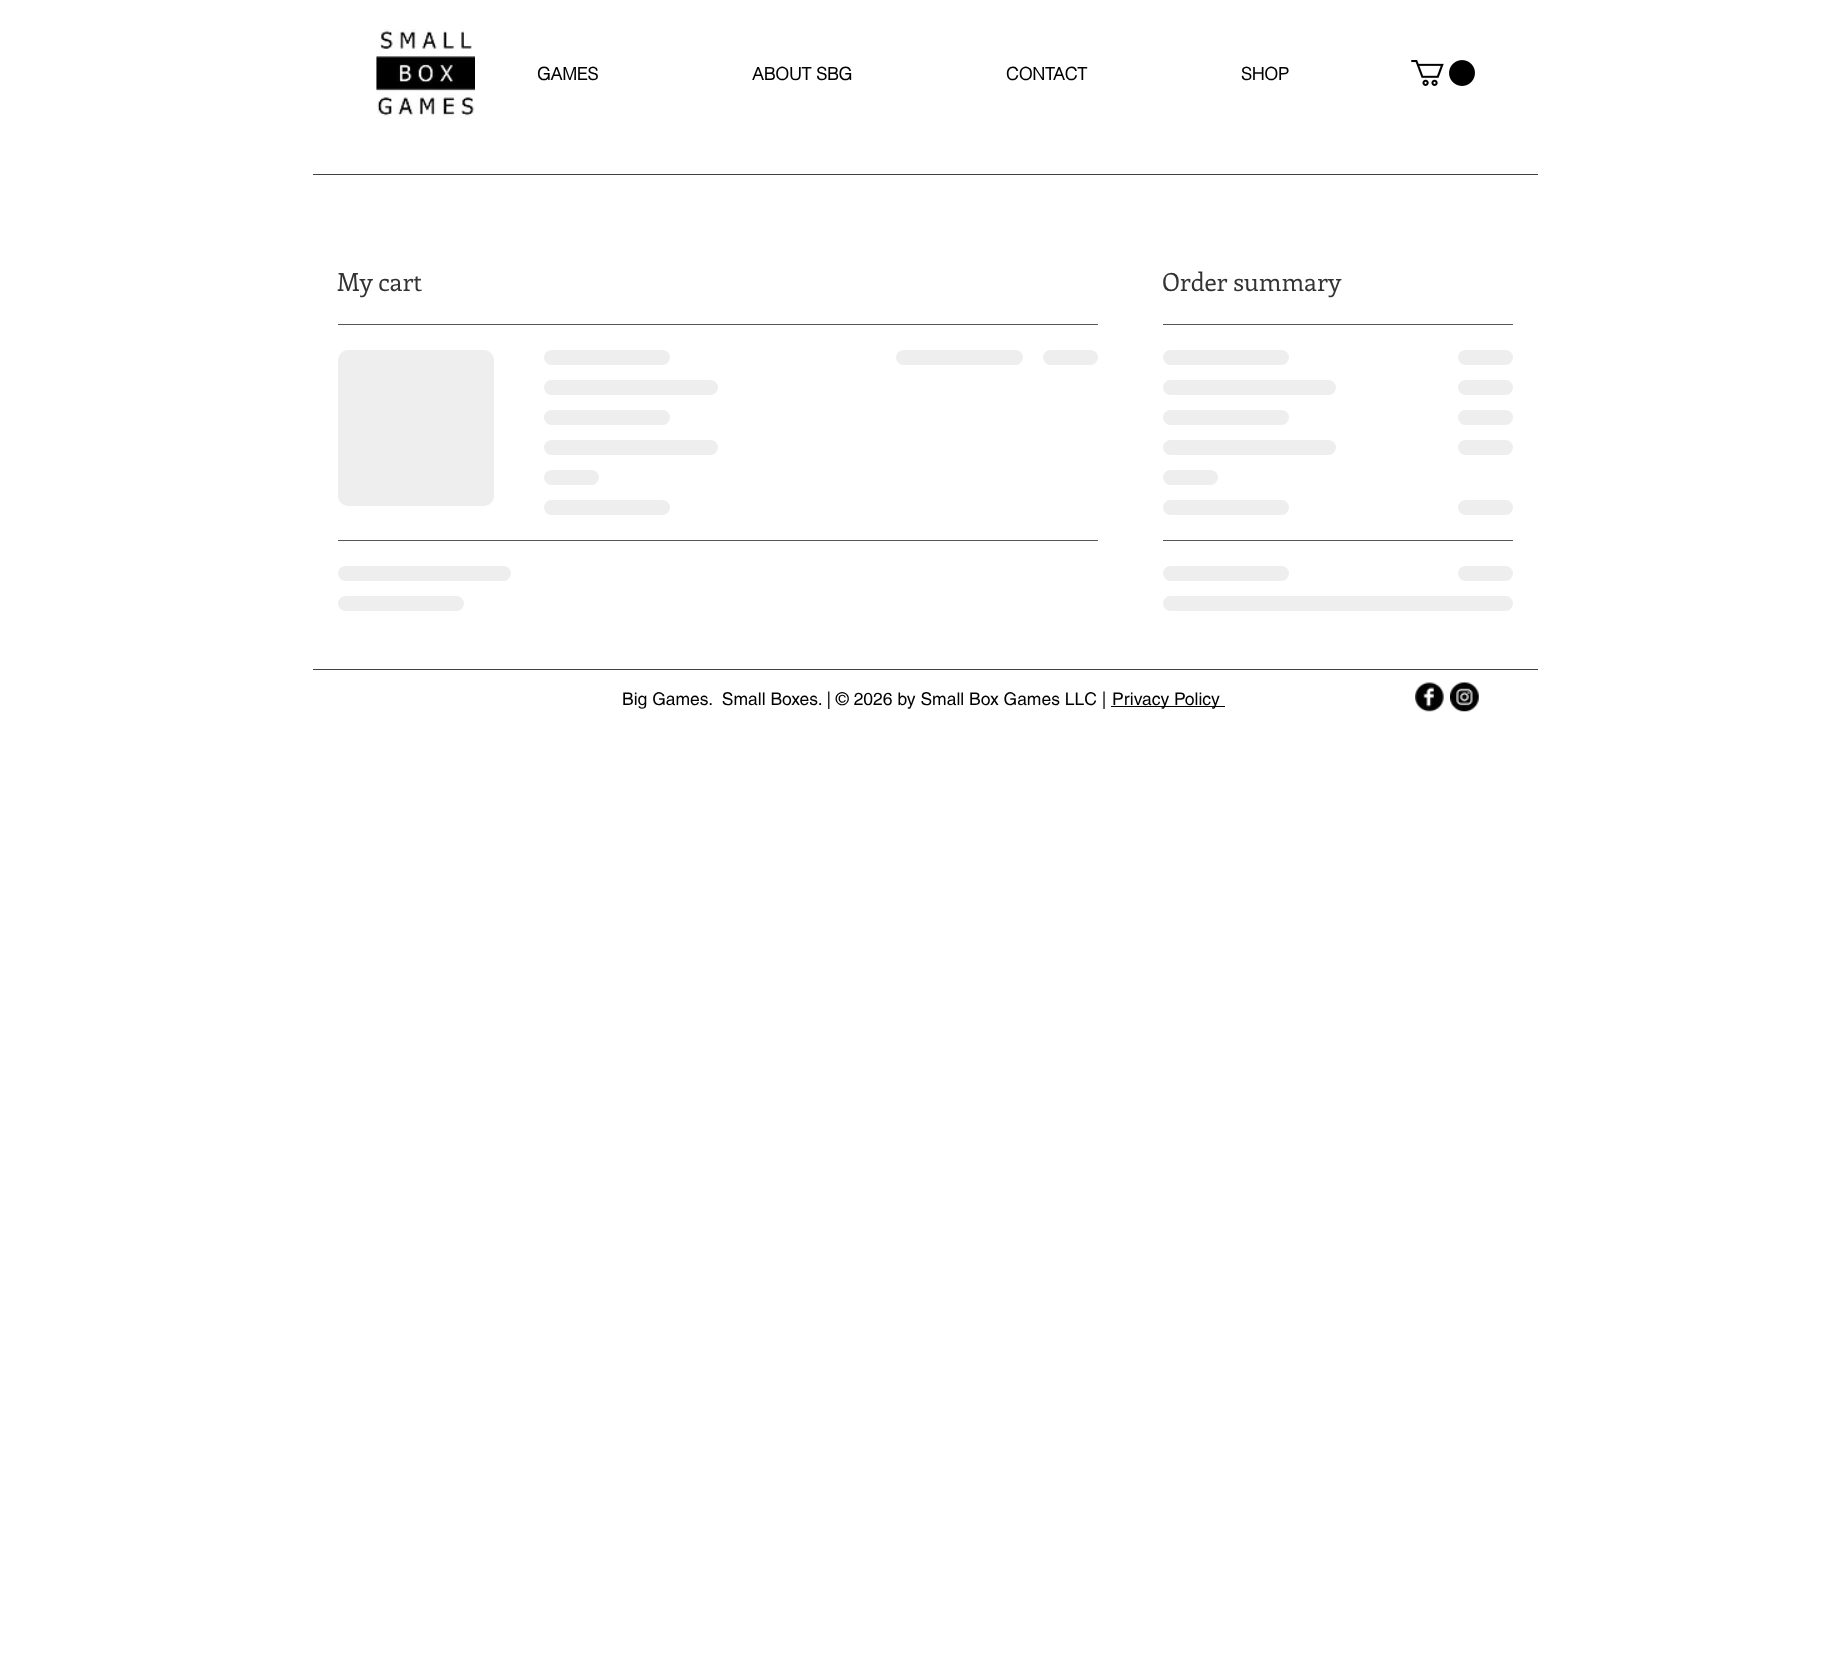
<!DOCTYPE html>
<meta charset="utf-8">
<style>body { margin: 0 } canvas { display: block }</style>
<canvas id="canvas" width="1848" height="1663"></canvas>
<img id="img1" src="images/1.png" hidden>
<img id="img2" src="images/2.png" hidden>
<img id="img3" src="images/3.png" hidden>
<img id="img4" src="images/4.png" hidden>
<script>
window.onload = function () {
    const canvas = document.getElementById('canvas');
    const context = canvas.getContext('2d');
    context.miterLimit = 4;
    context.fontKerning = 'normal';
    let gradient;

    context.fillStyle = 'rgb(255, 255, 255)';
    context.fillRect(0, 0, 1848, 1663);
    context.drawImage(document.getElementById('img1'), 376, 29, 99, 90);
    context.drawImage(document.getElementById('img2'), 1411, 60, 64, 26);
    context.fillStyle = 'rgb(66, 66, 66)';
    context.fillRect(313, 174, 1225, 1);
    context.fillStyle = 'rgb(85, 85, 85)';
    context.fillRect(338, 324, 760, 1);
    gradient = context.createLinearGradient(338, 428, 963, 428);
    gradient.addColorStop(0.25, 'rgb(238, 238, 238)');
    gradient.addColorStop(0.37, 'rgb(221, 221, 221)');
    gradient.addColorStop(0.63, 'rgb(238, 238, 238)');
    context.fillStyle = gradient;
    context.beginPath();
    context.roundRect(338, 350, 156, 156, 10);
    context.fill();
    gradient = context.createLinearGradient(544, 358, 1049, 358);
    gradient.addColorStop(0.25, 'rgb(238, 238, 238)');
    gradient.addColorStop(0.37, 'rgb(221, 221, 221)');
    gradient.addColorStop(0.63, 'rgb(238, 238, 238)');
    context.fillStyle = gradient;
    context.beginPath();
    context.roundRect(544, 350, 126, 15, 7.5);
    context.fill();
    gradient = context.createLinearGradient(544, 388, 1239, 388);
    gradient.addColorStop(0.25, 'rgb(238, 238, 238)');
    gradient.addColorStop(0.37, 'rgb(221, 221, 221)');
    gradient.addColorStop(0.63, 'rgb(238, 238, 238)');
    context.fillStyle = gradient;
    context.beginPath();
    context.roundRect(544, 380, 174, 15, 7.5);
    context.fill();
    gradient = context.createLinearGradient(544, 418, 1049, 418);
    gradient.addColorStop(0.25, 'rgb(238, 238, 238)');
    gradient.addColorStop(0.37, 'rgb(221, 221, 221)');
    gradient.addColorStop(0.63, 'rgb(238, 238, 238)');
    context.fillStyle = gradient;
    context.beginPath();
    context.roundRect(544, 410, 126, 15, 7.5);
    context.fill();
    gradient = context.createLinearGradient(544, 448, 1239, 448);
    gradient.addColorStop(0.25, 'rgb(238, 238, 238)');
    gradient.addColorStop(0.37, 'rgb(221, 221, 221)');
    gradient.addColorStop(0.63, 'rgb(238, 238, 238)');
    context.fillStyle = gradient;
    context.beginPath();
    context.roundRect(544, 440, 174, 15, 7.5);
    context.fill();
    gradient = context.createLinearGradient(544, 478, 764, 478);
    gradient.addColorStop(0.25, 'rgb(238, 238, 238)');
    gradient.addColorStop(0.37, 'rgb(221, 221, 221)');
    gradient.addColorStop(0.63, 'rgb(238, 238, 238)');
    context.fillStyle = gradient;
    context.beginPath();
    context.roundRect(544, 470, 55, 15, 7.5);
    context.fill();
    gradient = context.createLinearGradient(544, 508, 1049, 508);
    gradient.addColorStop(0.25, 'rgb(238, 238, 238)');
    gradient.addColorStop(0.37, 'rgb(221, 221, 221)');
    gradient.addColorStop(0.63, 'rgb(238, 238, 238)');
    context.fillStyle = gradient;
    context.beginPath();
    context.roundRect(544, 500, 126, 15, 7.5);
    context.fill();
    gradient = context.createLinearGradient(896, 358, 1401, 358);
    gradient.addColorStop(0.25, 'rgb(238, 238, 238)');
    gradient.addColorStop(0.37, 'rgb(221, 221, 221)');
    gradient.addColorStop(0.63, 'rgb(238, 238, 238)');
    context.fillStyle = gradient;
    context.beginPath();
    context.roundRect(896, 350, 127, 15, 7.5);
    context.fill();
    gradient = context.createLinearGradient(1043, 358, 1263, 358);
    gradient.addColorStop(0.25, 'rgb(238, 238, 238)');
    gradient.addColorStop(0.37, 'rgb(221, 221, 221)');
    gradient.addColorStop(0.63, 'rgb(238, 238, 238)');
    context.fillStyle = gradient;
    context.beginPath();
    context.roundRect(1043, 350, 55, 15, 7.5);
    context.fill();
    context.fillStyle = 'rgb(85, 85, 85)';
    context.fillRect(338, 540, 760, 1);
    gradient = context.createLinearGradient(338, 574, 1033, 574);
    gradient.addColorStop(0.25, 'rgb(238, 238, 238)');
    gradient.addColorStop(0.37, 'rgb(221, 221, 221)');
    gradient.addColorStop(0.63, 'rgb(238, 238, 238)');
    context.fillStyle = gradient;
    context.beginPath();
    context.roundRect(338, 566, 173, 15, 7.5);
    context.fill();
    gradient = context.createLinearGradient(338, 604, 843, 604);
    gradient.addColorStop(0.25, 'rgb(238, 238, 238)');
    gradient.addColorStop(0.37, 'rgb(221, 221, 221)');
    gradient.addColorStop(0.63, 'rgb(238, 238, 238)');
    context.fillStyle = gradient;
    context.beginPath();
    context.roundRect(338, 596, 126, 15, 7.5);
    context.fill();
    context.fillStyle = 'rgb(85, 85, 85)';
    context.fillRect(1163, 324, 350, 1);
    gradient = context.createLinearGradient(1163, 358, 1668, 358);
    gradient.addColorStop(0.25, 'rgb(238, 238, 238)');
    gradient.addColorStop(0.37, 'rgb(221, 221, 221)');
    gradient.addColorStop(0.63, 'rgb(238, 238, 238)');
    context.fillStyle = gradient;
    context.beginPath();
    context.roundRect(1163, 350, 126, 15, 7.5);
    context.fill();
    gradient = context.createLinearGradient(1458, 358, 1678, 358);
    gradient.addColorStop(0.25, 'rgb(238, 238, 238)');
    gradient.addColorStop(0.37, 'rgb(221, 221, 221)');
    gradient.addColorStop(0.63, 'rgb(238, 238, 238)');
    context.fillStyle = gradient;
    context.beginPath();
    context.roundRect(1458, 350, 55, 15, 7.5);
    context.fill();
    gradient = context.createLinearGradient(1163, 388, 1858, 388);
    gradient.addColorStop(0.25, 'rgb(238, 238, 238)');
    gradient.addColorStop(0.37, 'rgb(221, 221, 221)');
    gradient.addColorStop(0.63, 'rgb(238, 238, 238)');
    context.fillStyle = gradient;
    context.beginPath();
    context.roundRect(1163, 380, 173, 15, 7.5);
    context.fill();
    gradient = context.createLinearGradient(1458, 388, 1678, 388);
    gradient.addColorStop(0.25, 'rgb(238, 238, 238)');
    gradient.addColorStop(0.37, 'rgb(221, 221, 221)');
    gradient.addColorStop(0.63, 'rgb(238, 238, 238)');
    context.fillStyle = gradient;
    context.beginPath();
    context.roundRect(1458, 380, 55, 15, 7.5);
    context.fill();
    gradient = context.createLinearGradient(1163, 418, 1668, 418);
    gradient.addColorStop(0.25, 'rgb(238, 238, 238)');
    gradient.addColorStop(0.37, 'rgb(221, 221, 221)');
    gradient.addColorStop(0.63, 'rgb(238, 238, 238)');
    context.fillStyle = gradient;
    context.beginPath();
    context.roundRect(1163, 410, 126, 15, 7.5);
    context.fill();
    gradient = context.createLinearGradient(1458, 418, 1678, 418);
    gradient.addColorStop(0.25, 'rgb(238, 238, 238)');
    gradient.addColorStop(0.37, 'rgb(221, 221, 221)');
    gradient.addColorStop(0.63, 'rgb(238, 238, 238)');
    context.fillStyle = gradient;
    context.beginPath();
    context.roundRect(1458, 410, 55, 15, 7.5);
    context.fill();
    gradient = context.createLinearGradient(1163, 448, 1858, 448);
    gradient.addColorStop(0.25, 'rgb(238, 238, 238)');
    gradient.addColorStop(0.37, 'rgb(221, 221, 221)');
    gradient.addColorStop(0.63, 'rgb(238, 238, 238)');
    context.fillStyle = gradient;
    context.beginPath();
    context.roundRect(1163, 440, 173, 15, 7.5);
    context.fill();
    gradient = context.createLinearGradient(1458, 448, 1678, 448);
    gradient.addColorStop(0.25, 'rgb(238, 238, 238)');
    gradient.addColorStop(0.37, 'rgb(221, 221, 221)');
    gradient.addColorStop(0.63, 'rgb(238, 238, 238)');
    context.fillStyle = gradient;
    context.beginPath();
    context.roundRect(1458, 440, 55, 15, 7.5);
    context.fill();
    gradient = context.createLinearGradient(1163, 478, 1383, 478);
    gradient.addColorStop(0.25, 'rgb(238, 238, 238)');
    gradient.addColorStop(0.37, 'rgb(221, 221, 221)');
    gradient.addColorStop(0.63, 'rgb(238, 238, 238)');
    context.fillStyle = gradient;
    context.beginPath();
    context.roundRect(1163, 470, 55, 15, 7.5);
    context.fill();
    gradient = context.createLinearGradient(1163, 508, 1668, 508);
    gradient.addColorStop(0.25, 'rgb(238, 238, 238)');
    gradient.addColorStop(0.37, 'rgb(221, 221, 221)');
    gradient.addColorStop(0.63, 'rgb(238, 238, 238)');
    context.fillStyle = gradient;
    context.beginPath();
    context.roundRect(1163, 500, 126, 15, 7.5);
    context.fill();
    gradient = context.createLinearGradient(1458, 508, 1678, 508);
    gradient.addColorStop(0.25, 'rgb(238, 238, 238)');
    gradient.addColorStop(0.37, 'rgb(221, 221, 221)');
    gradient.addColorStop(0.63, 'rgb(238, 238, 238)');
    context.fillStyle = gradient;
    context.beginPath();
    context.roundRect(1458, 500, 55, 15, 7.5);
    context.fill();
    context.fillStyle = 'rgb(85, 85, 85)';
    context.fillRect(1163, 540, 350, 1);
    gradient = context.createLinearGradient(1163, 574, 1668, 574);
    gradient.addColorStop(0.25, 'rgb(238, 238, 238)');
    gradient.addColorStop(0.37, 'rgb(221, 221, 221)');
    gradient.addColorStop(0.63, 'rgb(238, 238, 238)');
    context.fillStyle = gradient;
    context.beginPath();
    context.roundRect(1163, 566, 126, 15, 7.5);
    context.fill();
    gradient = context.createLinearGradient(1458, 574, 1678, 574);
    gradient.addColorStop(0.25, 'rgb(238, 238, 238)');
    gradient.addColorStop(0.37, 'rgb(221, 221, 221)');
    gradient.addColorStop(0.63, 'rgb(238, 238, 238)');
    context.fillStyle = gradient;
    context.beginPath();
    context.roundRect(1458, 566, 55, 15, 7.5);
    context.fill();
    gradient = context.createLinearGradient(1163, 604, 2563, 604);
    gradient.addColorStop(0.25, 'rgb(238, 238, 238)');
    gradient.addColorStop(0.37, 'rgb(221, 221, 221)');
    gradient.addColorStop(0.63, 'rgb(238, 238, 238)');
    context.fillStyle = gradient;
    context.beginPath();
    context.roundRect(1163, 596, 350, 15, 7.5);
    context.fill();
    context.fillStyle = 'rgb(66, 66, 66)';
    context.fillRect(313, 669, 1225, 1);
    context.fillStyle = 'rgb(0, 0, 0)';
    context.fillRect(1111, 706, 114, 1);
    context.drawImage(document.getElementById('img3'), 1415, 682, 29, 30);
    context.drawImage(document.getElementById('img4'), 1450, 682, 29, 30);
    context.font = 'bold 17.5px helvetica';
    context.fillText('GAMES', 537, 80);
    context.fillText('ABOUT SBG', 752, 80);
    context.fillText('CONTACT', 1006, 80);
    context.fillText('SHOP', 1241, 80);
    context.font = '25px Enriqueta';
    context.fillStyle = 'rgb(51, 51, 51)';
    context.fillText('My cart', 337, 291);
    context.fillText('Order summary', 1162, 291);
    context.font = '17.5px helvetica';
    context.fillStyle = 'rgb(0, 0, 0)';
    context.fillText('Big Games.  Small Boxes. | © 2026 by Small Box Games LLC |', 622, 705);
    context.fillText('Privacy Policy', 1112, 705);
};
</script>
